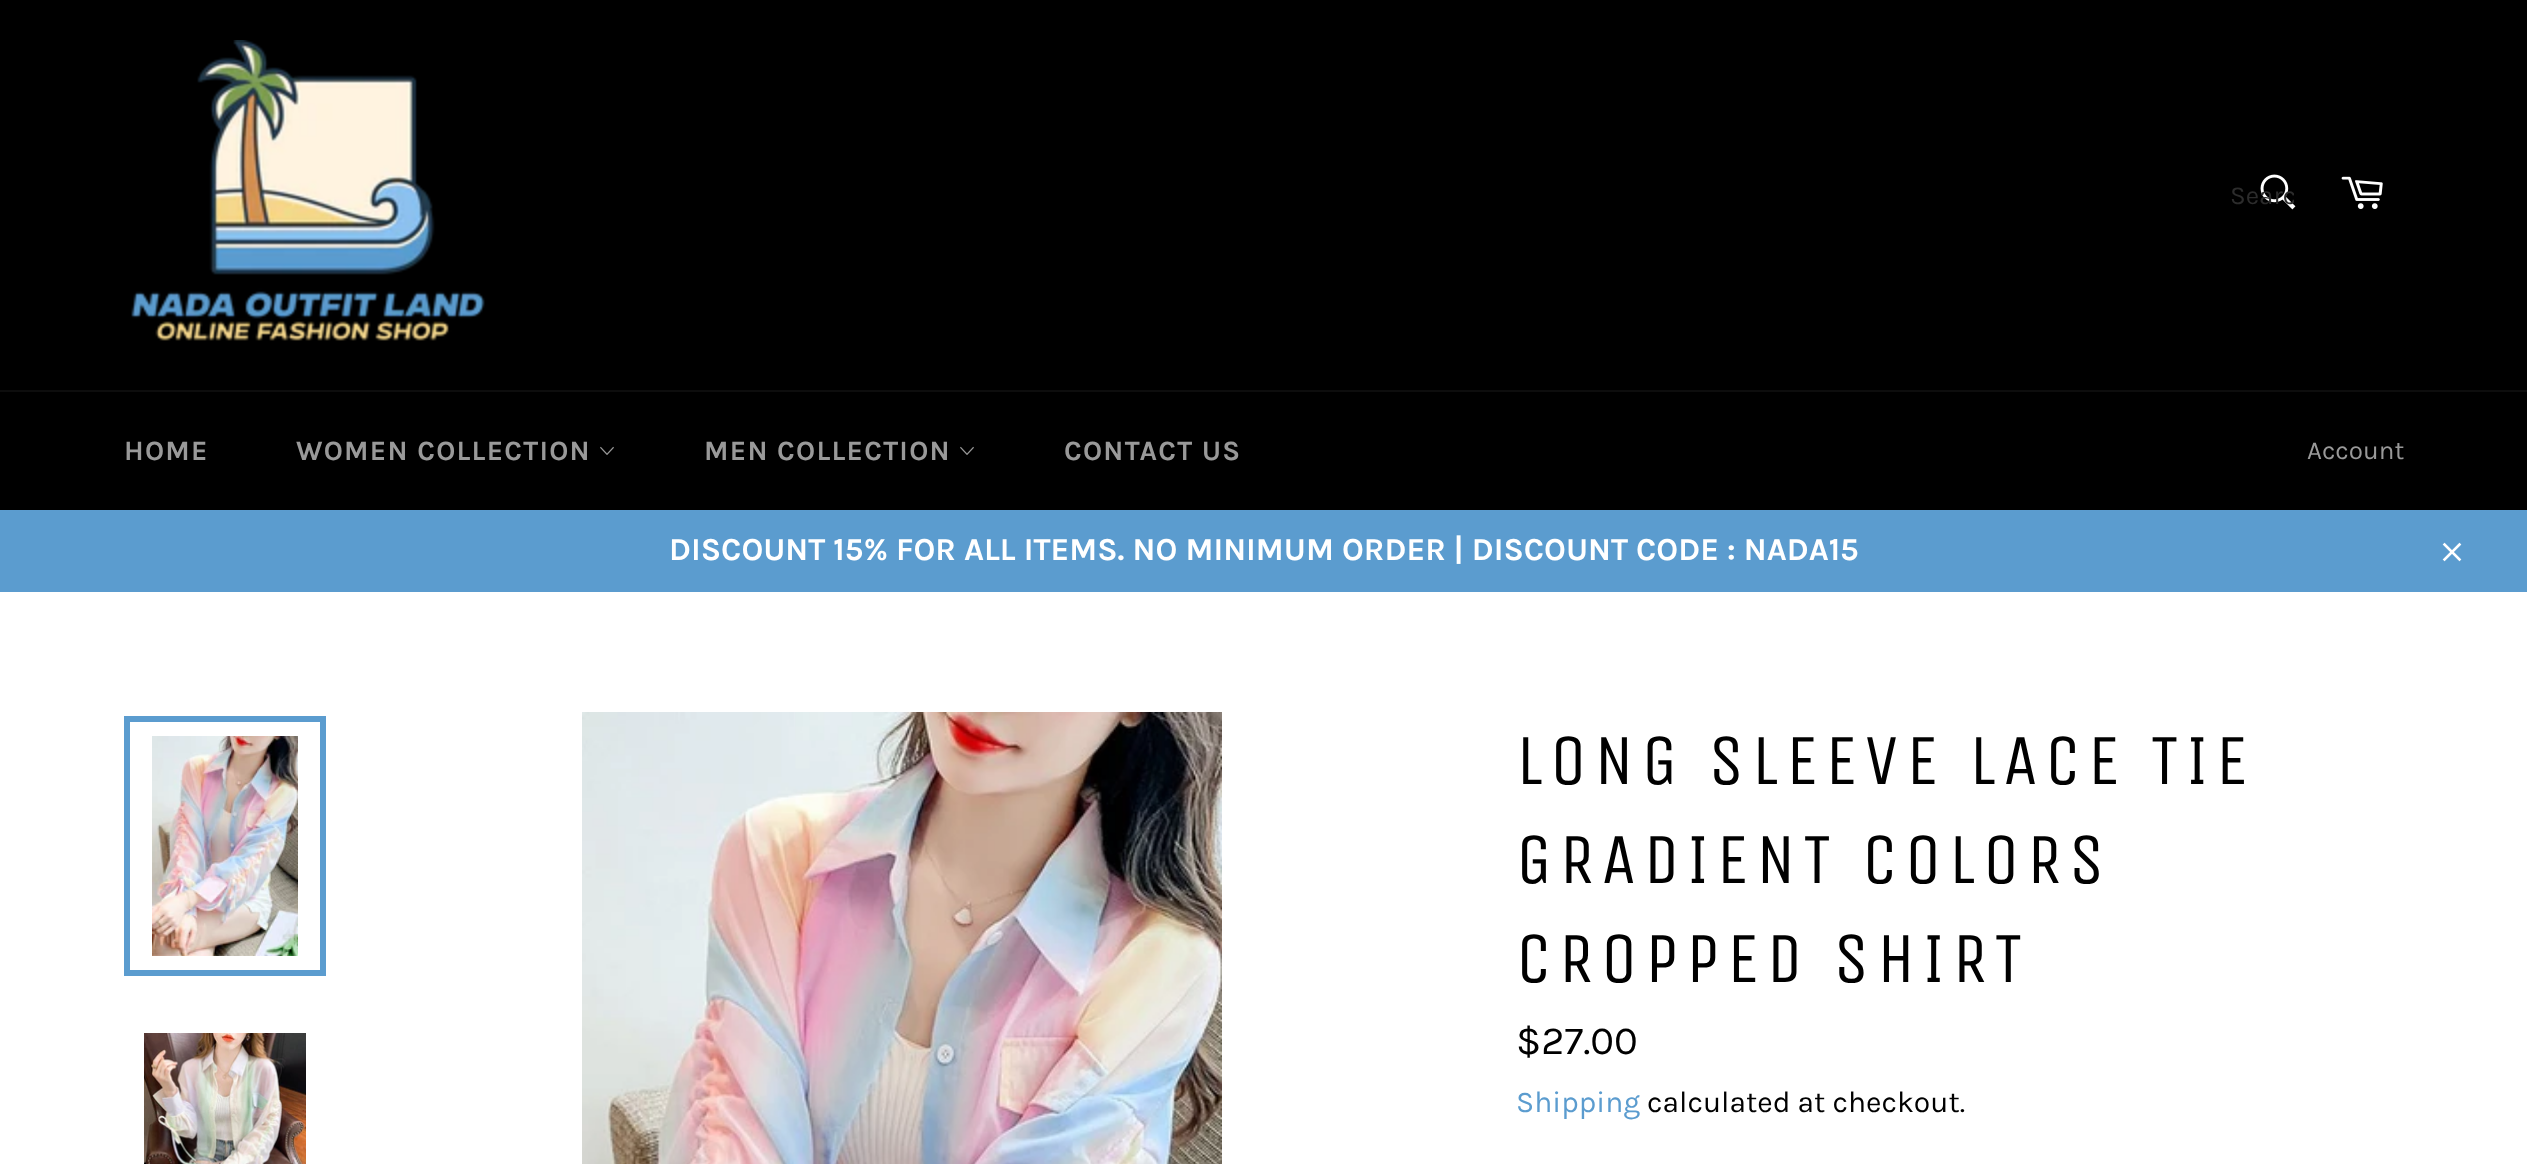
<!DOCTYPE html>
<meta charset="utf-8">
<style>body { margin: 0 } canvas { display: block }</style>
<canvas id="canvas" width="2527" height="1164"></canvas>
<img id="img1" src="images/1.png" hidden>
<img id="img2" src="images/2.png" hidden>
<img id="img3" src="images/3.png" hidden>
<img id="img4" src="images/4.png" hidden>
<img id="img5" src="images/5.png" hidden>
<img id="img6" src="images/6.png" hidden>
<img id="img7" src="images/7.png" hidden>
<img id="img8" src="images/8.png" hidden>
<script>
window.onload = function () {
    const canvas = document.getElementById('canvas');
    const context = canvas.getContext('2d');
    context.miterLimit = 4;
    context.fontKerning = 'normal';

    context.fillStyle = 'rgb(0, 0, 0)';
    context.fillRect(0, 0, 2527, 1164);
    context.drawImage(document.getElementById('img1'), 131, 40, 354, 301);
    context.drawImage(document.getElementById('img2'), 2260, 174, 36, 36);
    context.drawImage(document.getElementById('img3'), 2341, 176, 42, 33);
    context.fillStyle = 'rgb(13, 13, 13)';
    context.fillRect(0, 390, 2527, 2);
    context.drawImage(document.getElementById('img4'), 600, 446, 14, 9);
    context.drawImage(document.getElementById('img4'), 960, 446, 14, 9);
    context.fillStyle = 'rgb(91, 156, 207)';
    context.fillRect(0, 510, 2527, 82);
    context.drawImage(document.getElementById('img5'), 2442, 542, 20, 20);
    context.fillStyle = 'rgb(255, 255, 255)';
    context.fillRect(0, 592, 2527, 572);
    context.drawImage(document.getElementById('img6'), 152, 736, 146, 220);
    context.strokeStyle = 'rgb(91, 156, 207)';
    context.lineWidth = 6;
    context.strokeRect(127, 719, 196, 254);
    context.drawImage(document.getElementById('img7'), 144, 1033, 162, 131);
    context.drawImage(document.getElementById('img8'), 582, 712, 640, 452);
    context.save();
    context.beginPath();
    context.rect(2230, 180, 64, 30);
    context.clip();
    context.font = '26px Karla';
    context.fillStyle = 'rgb(44, 44, 44)';
    context.fillText('Searc', 2230, 204);
    context.restore();
    context.letterSpacing = '1.25px';
    context.font = 'bold 28px Karla';
    context.fillStyle = 'rgb(153, 153, 153)';
    context.fillText('HOME', 124, 460);
    context.fillText('WOMEN COLLECTION', 296, 460);
    context.fillText('MEN COLLECTION', 704, 460);
    context.fillText('CONTACT US', 1064, 460);
    context.letterSpacing = '0px';
    context.font = '26px Karla';
    context.fillText('Account', 2307, 459);
    context.font = 'bold 32px Karla';
    context.fillStyle = 'rgb(255, 255, 255)';
    context.fillText('DISCOUNT 15% FOR ALL ITEMS. NO MINIMUM ORDER | DISCOUNT CODE : NADA15', 669, 560);
    context.letterSpacing = '7.25px';
    context.font = '72px Unica One';
    context.fillStyle = 'rgb(0, 0, 0)';
    context.fillText('LONG SLEEVE LACE TIE', 1516, 784);
    context.fillText('GRADIENT COLORS', 1516, 883);
    context.fillText('CROPPED SHIRT', 1516, 982);
    context.letterSpacing = '0px';
    context.font = '40px Karla';
    context.fillText('$27.00', 1516, 1054);
    context.font = '30px Karla';
    context.fillStyle = 'rgb(91, 156, 207)';
    context.fillText('Shipping', 1516, 1112);
    context.fillStyle = 'rgb(0, 0, 0)';
    context.fillText('calculated at checkout.', 1647, 1112);
};
</script>
